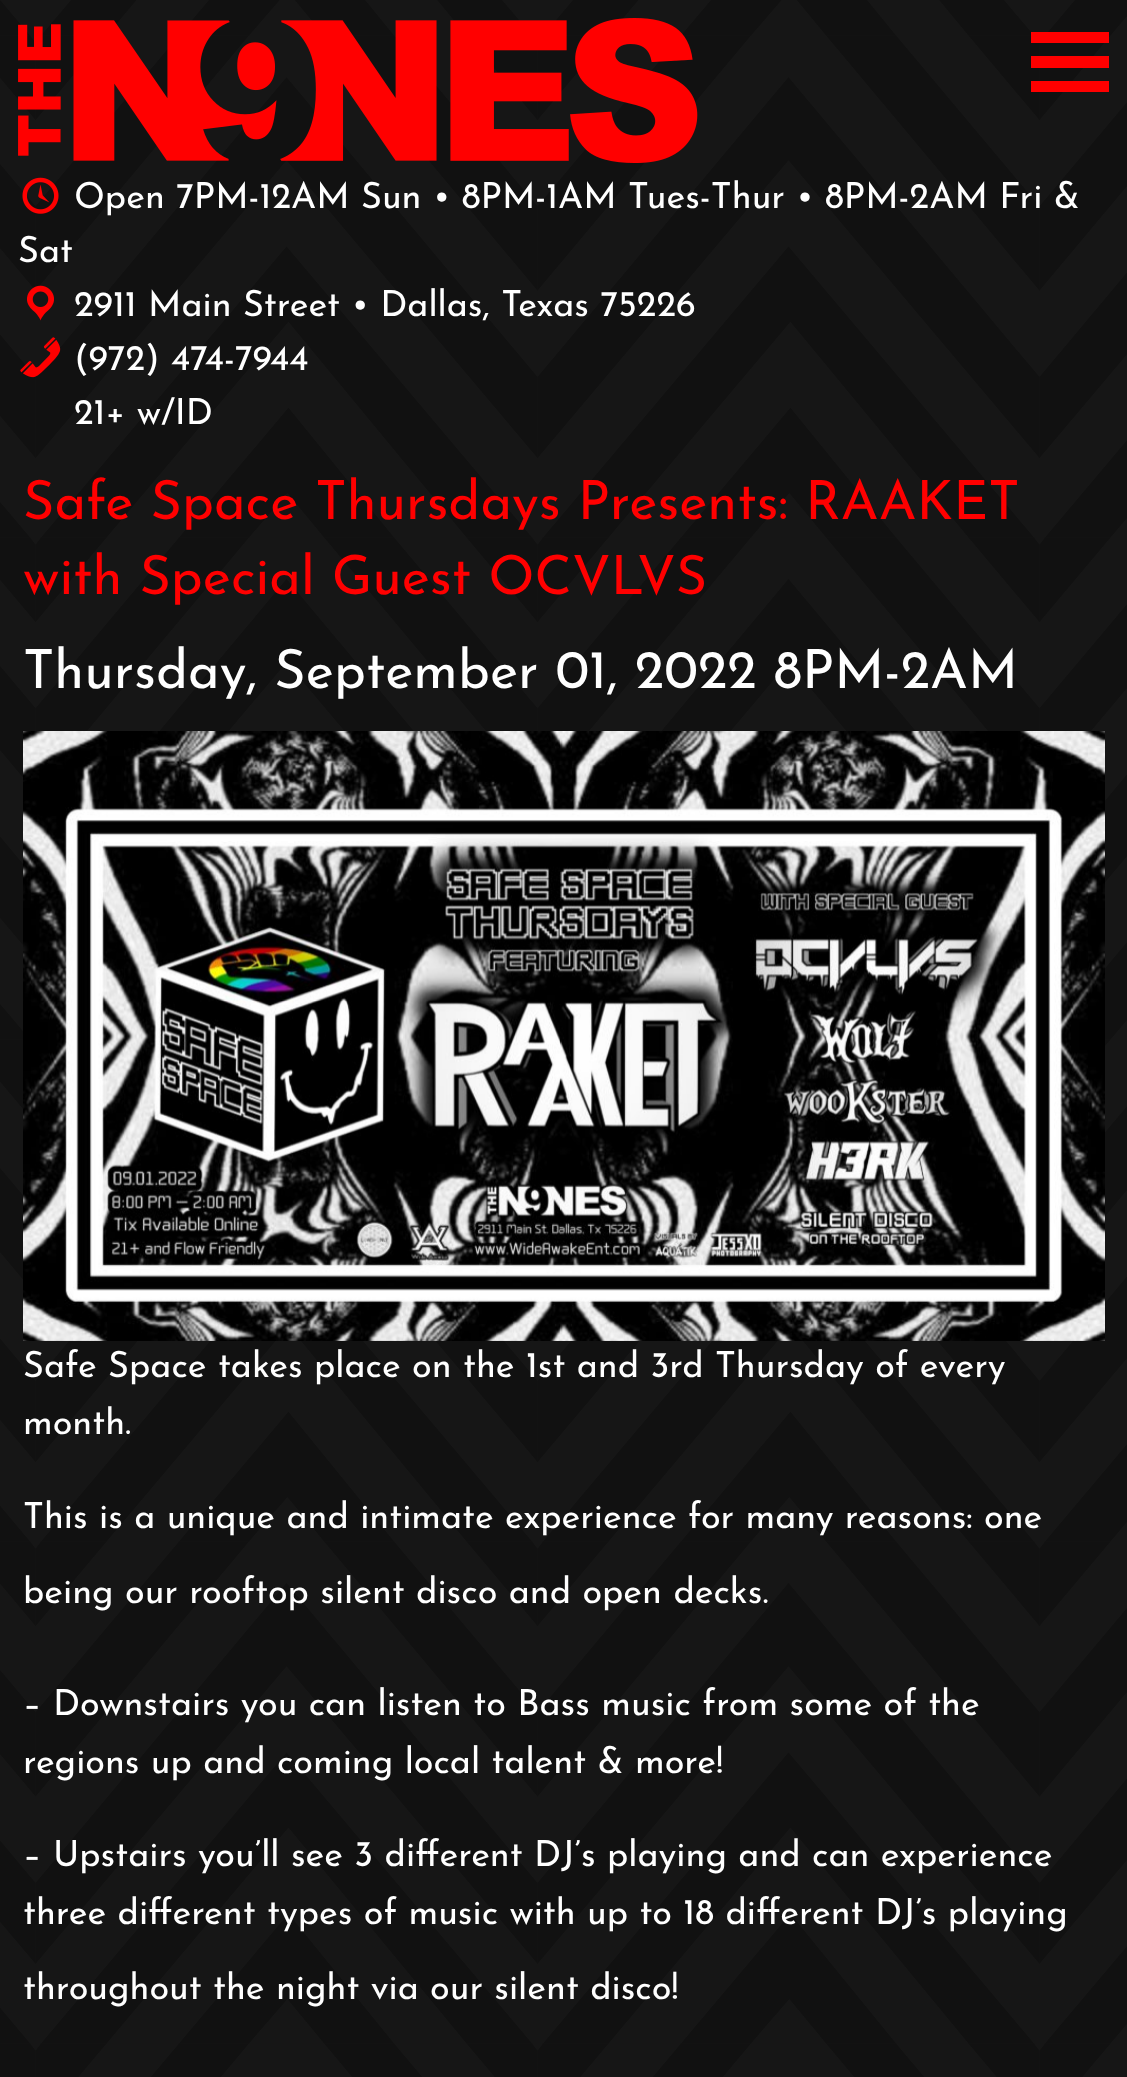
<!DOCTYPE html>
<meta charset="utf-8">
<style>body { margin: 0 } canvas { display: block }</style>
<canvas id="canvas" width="1127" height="2077"></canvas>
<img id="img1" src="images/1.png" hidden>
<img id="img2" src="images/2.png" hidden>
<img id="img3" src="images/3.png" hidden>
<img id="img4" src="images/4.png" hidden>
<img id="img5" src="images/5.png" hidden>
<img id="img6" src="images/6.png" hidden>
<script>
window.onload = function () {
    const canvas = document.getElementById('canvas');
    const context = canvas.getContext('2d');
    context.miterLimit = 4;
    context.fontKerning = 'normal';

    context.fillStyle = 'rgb(255, 255, 255)';
    context.fillRect(0, 0, 1127, 2077);
    context.drawImage(document.getElementById('img1'), 0, 0, 1127, 2077);
    context.drawImage(document.getElementById('img2'), 18, 18, 680, 145);
    context.fillStyle = 'rgb(255, 0, 0)';
    context.fillRect(1031, 32, 78, 11);
    context.fillRect(1031, 56, 78, 12);
    context.fillRect(1031, 81, 78, 11);
    context.drawImage(document.getElementById('img3'), 22, 177, 37, 37);
    context.drawImage(document.getElementById('img4'), 27, 285, 27, 36);
    context.drawImage(document.getElementById('img5'), 20, 337, 41, 41);
    context.drawImage(document.getElementById('img6'), 23, 731, 1082, 610);
    context.font = '100 36px Josefin Sans';
    context.fillStyle = 'rgb(255, 255, 255)';
    context.fillText('Open 7PM-12AM Sun • 8PM-1AM Tues-Thur • 8PM-2AM Fri &', 74, 208);
    context.fillText('Sat', 18, 262);
    context.fillText('2911 Main Street • Dallas, Texas 75226', 74, 316);
    context.fillText('(972) 474-7944', 74, 370);
    context.fillText('21+ w/ID', 74, 424);
    context.font = '100 54px Josefin Sans';
    context.fillStyle = 'rgb(255, 0, 0)';
    context.fillText('Safe Space Thursdays Presents: RAAKET', 23, 519);
    context.fillText('with Special Guest OCVLVS', 23, 594);
    context.fillStyle = 'rgb(255, 255, 255)';
    context.fillText('Thursday, September 01, 2022 8PM-2AM', 23, 688);
    context.font = '100 36px Josefin Sans';
    context.fillText('Safe Space takes place on the 1st and 3rd Thursday of every', 23, 1377);
    context.fillText('month.', 23, 1434);
    context.fillText('This is a unique and intimate experience for many reasons: one', 23, 1528);
    context.fillText('being our rooftop silent disco and open decks.', 23, 1603);
    context.fillText('– Downstairs you can listen to Bass music from some of the', 23, 1715);
    context.fillText('regions up and coming local talent & more!', 23, 1773);
    context.fillText('– Upstairs you’ll see 3 different DJ’s playing and can experience', 23, 1866);
    context.fillText('three different types of music with up to 18 different DJ’s playing', 23, 1924);
    context.fillText('throughout the night via our silent disco!', 23, 1999);
};
</script>
